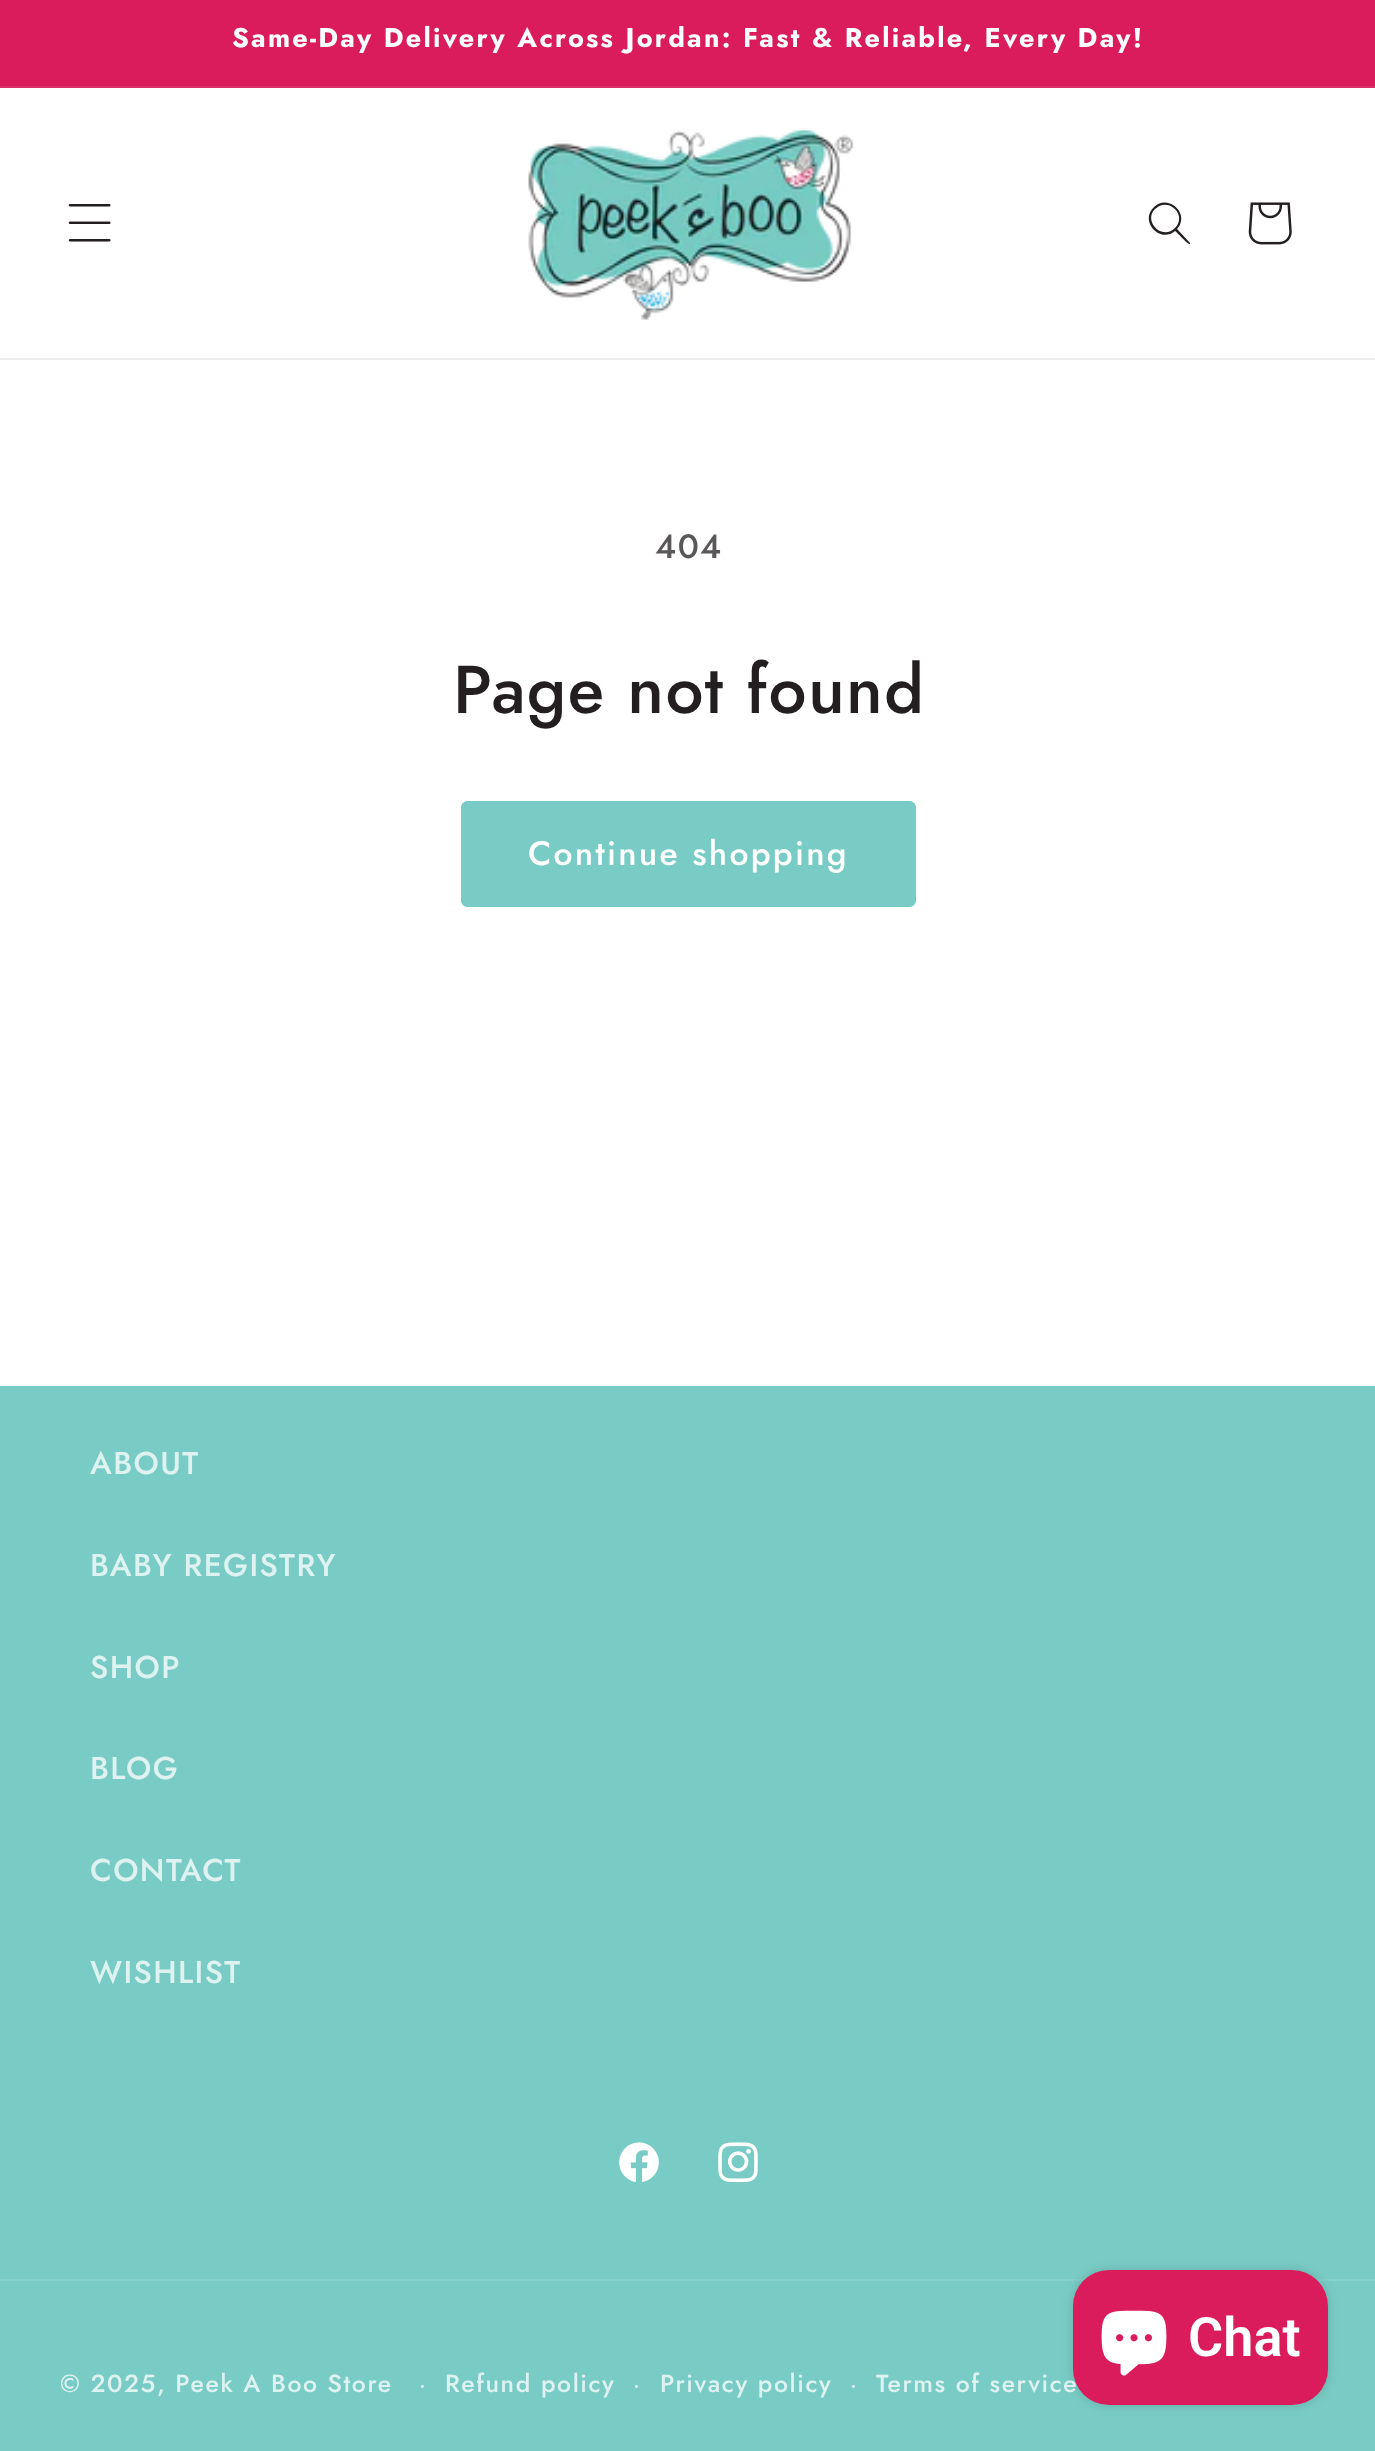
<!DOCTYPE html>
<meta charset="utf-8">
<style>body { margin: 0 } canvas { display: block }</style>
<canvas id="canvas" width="1375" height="2451"></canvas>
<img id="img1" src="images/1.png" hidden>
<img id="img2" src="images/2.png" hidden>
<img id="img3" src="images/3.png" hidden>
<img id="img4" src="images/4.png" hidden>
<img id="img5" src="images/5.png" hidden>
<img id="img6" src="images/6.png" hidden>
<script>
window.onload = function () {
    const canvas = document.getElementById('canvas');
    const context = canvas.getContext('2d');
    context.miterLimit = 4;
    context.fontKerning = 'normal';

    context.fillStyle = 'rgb(255, 255, 255)';
    context.fillRect(0, 0, 1375, 2451);
    context.fillStyle = 'rgb(218, 28, 92)';
    context.fillRect(0, 0, 1375, 86);
    context.fillStyle = 'rgb(221, 46, 105)';
    context.fillRect(0, 86, 1375, 2);
    context.fillStyle = 'rgb(237, 237, 237)';
    context.fillRect(0, 358, 1375, 2);
    context.drawImage(document.getElementById('img1'), 68, 204, 43, 38);
    context.drawImage(document.getElementById('img2'), 528, 128, 326, 192);
    context.fillStyle = 'rgb(35, 31, 32)';
    context.beginPath();
    context.moveTo(1175, 228);
    context.bezierCurveTo(1162, 241, 1143, 221, 1155, 209);
    context.bezierCurveTo(1168, 196, 1188, 215, 1175, 228);
    context.closePath();
    context.moveTo(1175, 231);
    context.bezierCurveTo(1160, 244, 1139, 221, 1154, 207);
    context.bezierCurveTo(1168, 193, 1191, 214, 1177, 229);
    context.lineTo(1190, 243);
    context.lineTo(1190, 244);
    context.bezierCurveTo(1188, 245, 1177, 232, 1175, 231);
    context.closePath();
    context.fill('evenodd');
    context.drawImage(document.getElementById('img3'), 1248, 202, 44, 43);
    context.fillStyle = 'rgb(121, 204, 197)';
    context.beginPath();
    context.roundRect(461, 801, 455, 106, 7);
    context.fill();
    context.beginPath();
    context.roundRect(462, 802, 453, 104, 6);
    context.strokeStyle = 'rgb(121, 204, 197)';
    context.lineWidth = 2;
    context.stroke();
    context.fillRect(0, 1386, 1375, 1065);
    context.drawImage(document.getElementById('img4'), 619, 2142, 40, 40);
    context.drawImage(document.getElementById('img5'), 718, 2142, 40, 41);
    context.fillStyle = 'rgb(132, 208, 202)';
    context.fillRect(0, 2279, 1375, 2);
    context.fillStyle = 'rgba(0, 0, 0, 0.15)';
    context.filter = 'blur(5.5px)';
    context.beginPath();
    context.roundRect(1073, 2270, 255, 135, 36);
    context.fill();
    context.filter = 'none';
    context.letterSpacing = '2.25px';
    context.font = 'bold 27px Jost';
    context.fillStyle = 'rgb(255, 255, 255)';
    context.fillText('Same-Day Delivery Across Jordan: Fast & Reliable, Every Day!', 232, 47);
    context.letterSpacing = '1.4px';
    context.font = '500 33.75px Jost';
    context.fillStyle = 'rgb(90, 87, 88)';
    context.fillText('404', 655, 558);
    context.font = '500 67.5px Jost';
    context.fillStyle = 'rgb(35, 31, 32)';
    context.fillText('Page not found', 453, 713);
    context.letterSpacing = '2.25px';
    context.font = '500 33.75px Jost';
    context.fillStyle = 'rgb(255, 255, 255)';
    context.fillText('Continue shopping', 528, 865);
    context.letterSpacing = '1.4px';
    context.font = '500 31.5px Jost';
    context.fillStyle = 'rgb(222, 242, 241)';
    context.fillText('ABOUT', 90, 1474);
    context.fillText('BABY REGISTRY', 90, 1576);
    context.fillText('SHOP', 90, 1678);
    context.fillText('BLOG', 90, 1779);
    context.fillText('CONTACT', 90, 1881);
    context.fillText('WISHLIST', 90, 1983);
    context.letterSpacing = '1.6px';
    context.font = '500 24.75px Jost';
    context.fillText('© 2025, Peek A Boo Store', 60, 2392);
    context.font = '500 22px Jost';
    context.fillText('·', 419, 2392);
    context.font = '500 24.75px Jost';
    context.fillText('Refund policy', 445, 2392);
    context.font = '500 22px Jost';
    context.fillText('·', 633, 2392);
    context.font = '500 24.75px Jost';
    context.fillText('Privacy policy', 660, 2392);
    context.font = '500 22px Jost';
    context.fillText('·', 850, 2392);
    context.font = '500 24.75px Jost';
    context.fillText('Terms of service', 876, 2392);
    context.fillStyle = 'rgb(218, 28, 92)';
    context.beginPath();
    context.roundRect(1073, 2270, 255, 135, 36);
    context.fill();
    context.drawImage(document.getElementById('img6'), 1101, 2310, 66, 66);
    context.letterSpacing = '0px';
    context.font = '600 54px Roboto';
    context.fillStyle = 'rgb(255, 255, 255)';
    context.fillText('Chat', 1188, 2356);
};
</script>
